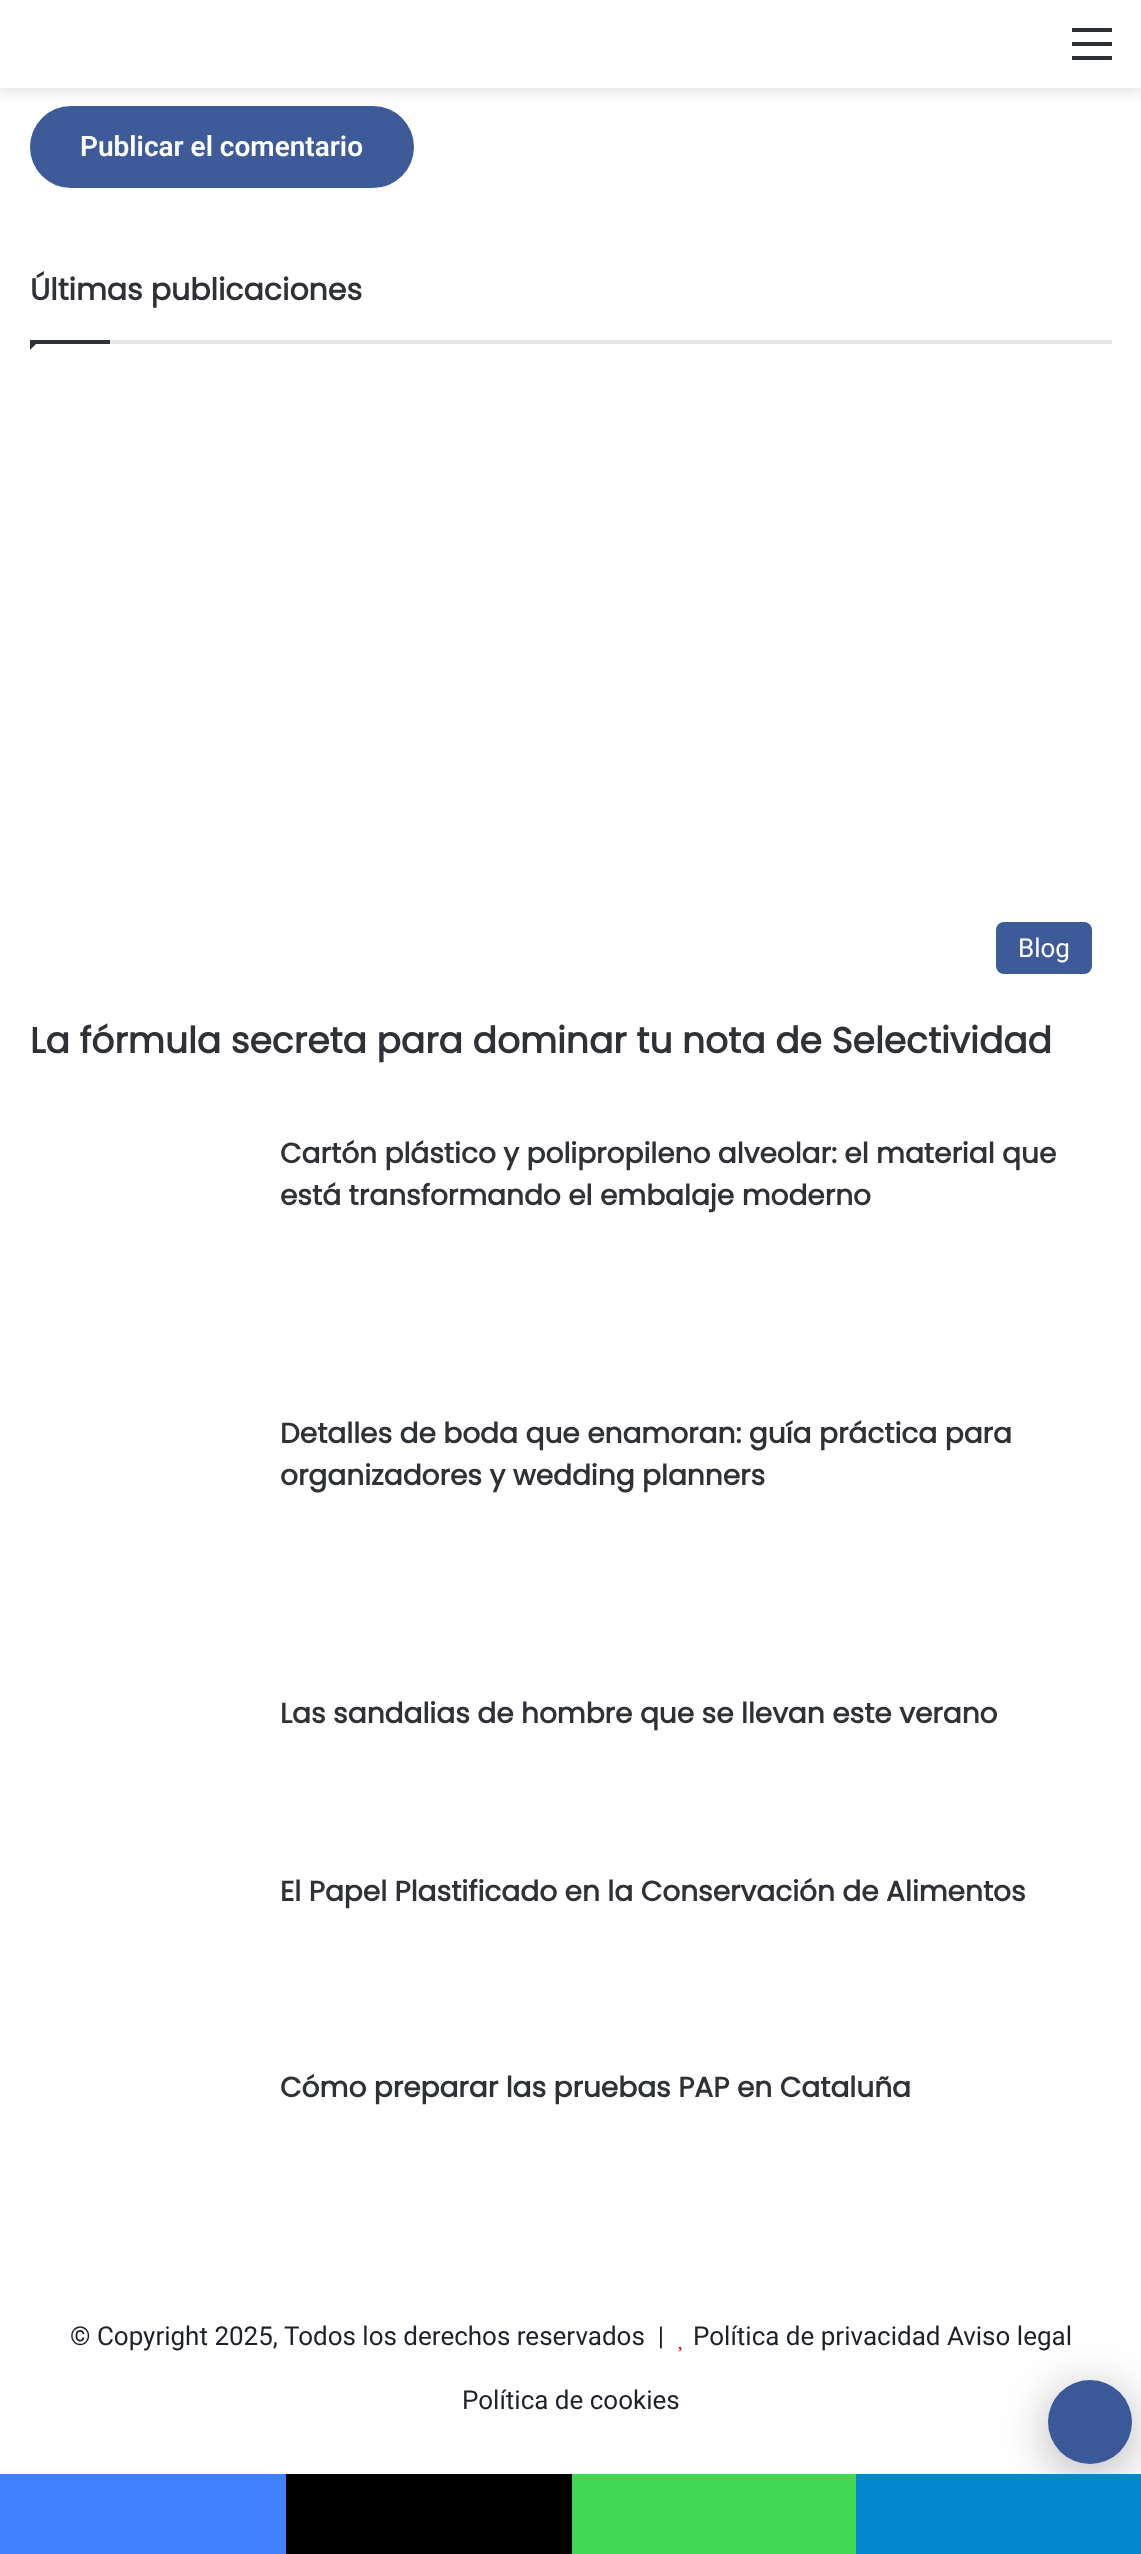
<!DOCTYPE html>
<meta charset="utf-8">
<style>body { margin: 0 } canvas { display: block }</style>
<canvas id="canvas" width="1141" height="2554"></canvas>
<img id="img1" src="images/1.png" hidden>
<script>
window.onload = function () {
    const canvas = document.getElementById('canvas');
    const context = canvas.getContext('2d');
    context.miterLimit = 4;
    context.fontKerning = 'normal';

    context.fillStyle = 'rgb(255, 255, 255)';
    context.fillRect(0, 0, 1141, 2554);
    context.fillStyle = 'rgb(61, 91, 153)';
    context.beginPath();
    context.roundRect(30, 106, 384, 82, 41);
    context.fill();
    context.save();
    context.beginPath();
    context.rect(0, 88, 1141, 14);
    context.clip();
    context.fillStyle = 'rgba(99, 99, 99, 0.2)';
    context.filter = 'blur(8px)';
    context.beginPath();
    context.rect(0, 4, 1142, 88);
    context.fill();
    context.filter = 'none';
    context.restore();
    context.fillStyle = 'rgb(44, 47, 52)';
    context.fillRect(1072, 42, 40, 4);
    context.fillRect(1072, 28, 40, 4);
    context.fillRect(1072, 56, 40, 4);
    context.fillStyle = 'rgb(230, 230, 230)';
    context.fillRect(110, 340, 1002, 4);
    context.fillStyle = 'rgb(46, 49, 54)';
    context.beginPath();
    context.moveTo(30, 340);
    context.lineTo(40, 340);
    context.lineTo(30, 350);
    context.closePath();
    context.fill();
    context.fillRect(30, 340, 80, 4);
    context.fillStyle = 'rgb(61, 91, 153)';
    context.beginPath();
    context.roundRect(996, 922, 96, 52, 8);
    context.fill();
    context.fillStyle = 'rgba(0, 0, 0, 0.3)';
    context.filter = 'blur(25px)';
    context.beginPath();
    context.roundRect(1048, 2390, 84, 84, 42);
    context.fill();
    context.filter = 'none';
    context.fillStyle = 'rgb(59, 89, 152)';
    context.beginPath();
    context.arc(1090, 2422, 42, 0, 2 * Math.PI);
    context.fill();
    context.drawImage(document.getElementById('img1'), 678, 2346, 4, 6);
    context.fillStyle = 'rgb(64, 128, 255)';
    context.fillRect(0, 2474, 286, 80);
    context.fillStyle = 'rgb(0, 0, 0)';
    context.fillRect(286, 2474, 286, 80);
    context.fillStyle = 'rgb(67, 216, 84)';
    context.fillRect(572, 2474, 284, 80);
    context.fillStyle = 'rgb(0, 136, 204)';
    context.fillRect(856, 2474, 285, 80);
    context.font = '600 28px Roboto';
    context.fillStyle = 'rgb(255, 255, 255)';
    context.fillText('Publicar el comentario', 80, 156);
    context.font = 'bold 30px Poppins';
    context.fillStyle = 'rgb(46, 49, 54)';
    context.fillText('Últimas publicaciones', 30, 300);
    context.font = '26px Roboto';
    context.fillStyle = 'rgb(255, 255, 255)';
    context.fillText('Blog', 1018, 957);
    context.font = 'bold 36px Poppins';
    context.fillStyle = 'rgb(46, 49, 54)';
    context.fillText('La fórmula secreta para dominar tu nota de Selectividad', 30, 1053);
    context.font = 'bold 28px Poppins';
    context.fillText('Cartón plástico y polipropileno alveolar: el material que', 280, 1163);
    context.fillText('está transformando el embalaje moderno', 280, 1205);
    context.fillText('Detalles de boda que enamoran: guía práctica para', 280, 1443);
    context.fillText('organizadores y wedding planners', 280, 1485);
    context.fillText('Las sandalias de hombre que se llevan este verano', 280, 1723);
    context.fillText('El Papel Plastificado en la Conservación de Alimentos', 280, 1901);
    context.fillText('Cómo preparar las pruebas PAP en Cataluña', 280, 2097);
    context.font = '26px Roboto';
    context.fillStyle = 'rgb(29, 33, 41)';
    context.fillText('© Copyright 2025, Todos los derechos reservados  |', 70, 2345);
    context.fillText('Política de privacidad Aviso legal', 693, 2345);
    context.fillText('Política de cookies', 462, 2409);
};
</script>
